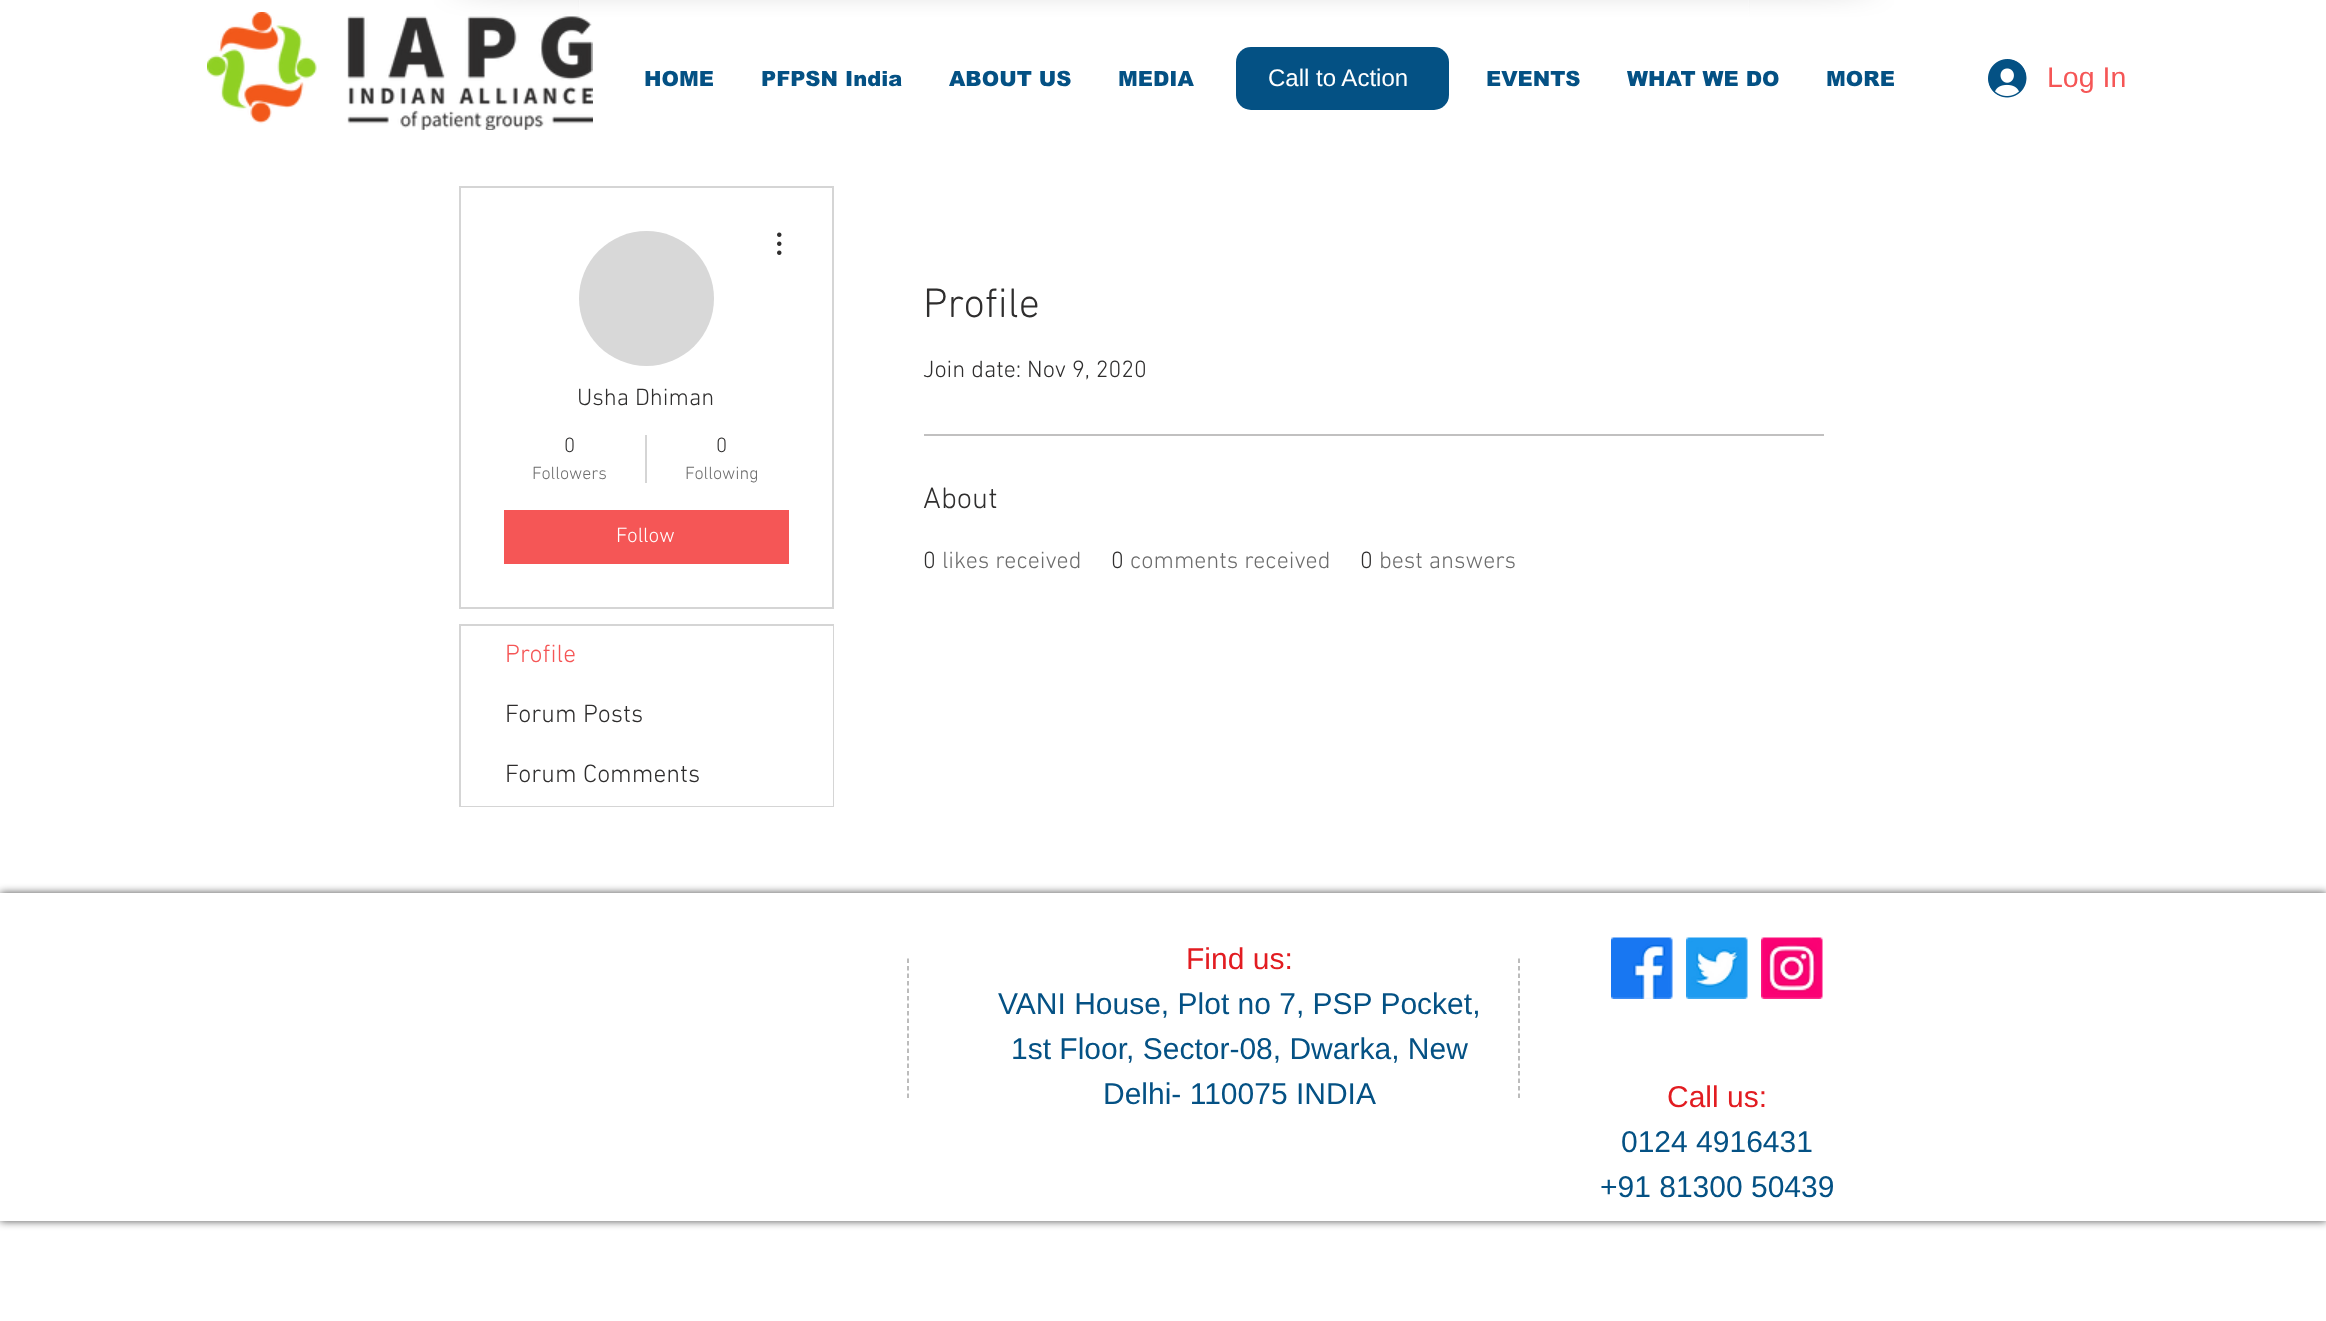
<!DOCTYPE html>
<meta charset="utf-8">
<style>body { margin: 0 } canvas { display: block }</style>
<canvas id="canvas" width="2326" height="1321"></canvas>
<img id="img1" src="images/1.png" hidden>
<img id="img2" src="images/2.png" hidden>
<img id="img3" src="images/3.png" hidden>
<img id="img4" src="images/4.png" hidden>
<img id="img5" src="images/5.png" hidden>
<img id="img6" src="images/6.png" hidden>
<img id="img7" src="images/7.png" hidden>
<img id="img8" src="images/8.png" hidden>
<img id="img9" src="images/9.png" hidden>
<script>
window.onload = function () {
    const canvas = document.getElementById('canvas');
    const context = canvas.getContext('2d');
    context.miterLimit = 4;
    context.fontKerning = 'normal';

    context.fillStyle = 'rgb(255, 255, 255)';
    context.fillRect(0, 0, 2326, 1321);
    context.drawImage(document.getElementById('img1'), 434, 0, 145, 17);
    context.drawImage(document.getElementById('img2'), 578, 0, 1172, 17);
    context.drawImage(document.getElementById('img3'), 1748, 0, 146, 17);
    context.drawImage(document.getElementById('img4'), 207, 12, 386, 118);
    context.fillStyle = 'rgb(4, 81, 132)';
    context.beginPath();
    context.roundRect(1236, 47, 213, 63, 15);
    context.fill();
    context.drawImage(document.getElementById('img5'), 1988, 59, 39, 39);
    context.strokeStyle = 'rgb(213, 213, 213)';
    context.lineWidth = 2;
    context.strokeRect(460, 187, 373, 421);
    context.fillStyle = 'rgb(216, 216, 216)';
    context.beginPath();
    context.arc(646.5, 298.5, 67.5, 0, 2 * Math.PI);
    context.fill();
    context.drawImage(document.getElementById('img6'), 777, 232, 5, 23);
    context.fillStyle = 'rgb(213, 213, 213)';
    context.fillRect(645, 435, 2, 48);
    context.fillStyle = 'rgb(245, 86, 86)';
    context.fillRect(504, 510, 285, 54);
    context.strokeRect(460, 625, 373, 181);
    context.fillStyle = 'rgb(255, 255, 255)';
    context.fillRect(832, 626, 1, 120);
    context.fillRect(461, 746, 372, 60);
    context.fillStyle = 'rgb(193, 192, 192)';
    context.fillRect(924, 434, 900, 2);
    context.save();
    context.beginPath();
    context.moveTo(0, 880);
    context.lineTo(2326, 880);
    context.lineTo(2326, 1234);
    context.lineTo(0, 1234);
    context.closePath();
    context.moveTo(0, 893);
    context.lineTo(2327, 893);
    context.lineTo(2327, 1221);
    context.lineTo(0, 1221);
    context.closePath();
    context.clip('evenodd');
    context.fillStyle = 'rgba(0, 0, 0, 0.7)';
    context.filter = 'blur(4px)';
    context.beginPath();
    context.rect(0, 893, 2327, 328);
    context.fill();
    context.filter = 'none';
    context.restore();
    context.beginPath();
    context.moveTo(908, 958.5);
    context.lineTo(908, 1098);
    context.strokeStyle = 'rgb(166, 166, 166)';
    context.lineWidth = 1.5;
    context.setLineDash([4.5, 3]);
    context.stroke();
    context.beginPath();
    context.moveTo(1519, 958.5);
    context.lineTo(1519, 1098);
    context.stroke();
    context.drawImage(document.getElementById('img7'), 1611, 937, 62, 62);
    context.drawImage(document.getElementById('img8'), 1686, 937, 62, 62);
    context.drawImage(document.getElementById('img9'), 1761, 937, 62, 62);
    context.font = '24px Liberation Sans';
    context.fillStyle = 'rgb(255, 255, 255)';
    context.fillText('Call to Action', 1268, 86);
    context.font = '28.5px Liberation Sans';
    context.fillStyle = 'rgb(245, 86, 86)';
    context.fillText('Log In', 2047, 87);
    context.font = '900 21px arial';
    context.fillStyle = 'rgb(4, 81, 132)';
    context.fillText('HOME', 644, 86);
    context.fillText('PFPSN India', 761, 86);
    context.fillText('ABOUT US', 949, 86);
    context.fillText('MEDIA', 1118, 86);
    context.fillText('EVENTS', 1486, 86);
    context.fillText('WHAT WE DO', 1627, 86);
    context.fillText('MORE', 1826, 86);
    context.font = '300 24px "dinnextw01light"';
    context.fillStyle = 'rgb(47, 46, 46)';
    context.fillText('Usha Dhiman', 577, 405);
    context.font = '300 21px "dinnextw01light"';
    context.fillText('0', 564, 452);
    context.font = '300 18px "dinnextw01light"';
    context.fillStyle = 'rgb(109, 109, 109)';
    context.fillText('Followers', 532, 479);
    context.font = '300 21px "dinnextw01light"';
    context.fillStyle = 'rgb(47, 46, 46)';
    context.fillText('0', 716, 452);
    context.font = '300 18px "dinnextw01light"';
    context.fillStyle = 'rgb(109, 109, 109)';
    context.fillText('Following', 685, 479);
    context.font = '300 21px "dinnextw01light"';
    context.fillStyle = 'rgb(255, 255, 255)';
    context.fillText('Follow', 616, 542);
    context.font = '300 25.5px "dinnextw01light"';
    context.fillStyle = 'rgb(245, 86, 86)';
    context.fillText('Profile', 505, 662);
    context.fillStyle = 'rgb(47, 46, 46)';
    context.fillText('Forum Posts', 505, 722);
    context.fillText('Forum Comments', 505, 782);
    context.font = '300 42px "dinnextw01light"';
    context.fillText('Profile', 923, 317);
    context.font = '300 24px "dinnextw01light"';
    context.fillText('Join date: Nov 9, 2020', 923, 377);
    context.font = '300 30px "dinnextw01light"';
    context.fillText('About', 923, 508);
    context.font = '300 24px "dinnextw01light"';
    context.fillText('0', 923, 568);
    context.fillStyle = 'rgb(109, 109, 109)';
    context.fillText('likes received', 942, 568);
    context.fillStyle = 'rgb(47, 46, 46)';
    context.fillText('0', 1111, 568);
    context.fillStyle = 'rgb(109, 109, 109)';
    context.fillText('comments received', 1130, 568);
    context.fillStyle = 'rgb(47, 46, 46)';
    context.fillText('0', 1360, 568);
    context.fillStyle = 'rgb(109, 109, 109)';
    context.fillText('best answers', 1379, 568);
    context.font = '30px Liberation Sans';
    context.fillStyle = 'rgb(226, 28, 33)';
    context.fillText('Find us:', 1186, 969);
    context.fillStyle = 'rgb(4, 81, 132)';
    context.fillText('VANI House, Plot no 7, PSP Pocket,', 998, 1014);
    context.fillText('1st Floor, Sector-08, Dwarka, New', 1011, 1059);
    context.fillText('Delhi- 110075 INDIA', 1103, 1104);
    context.fillStyle = 'rgb(226, 28, 33)';
    context.fillText('Call us:', 1667, 1107);
    context.fillStyle = 'rgb(4, 81, 132)';
    context.fillText('0124 4916431', 1621, 1152);
    context.fillText('+91 81300 50439', 1600, 1197);
};
</script>
